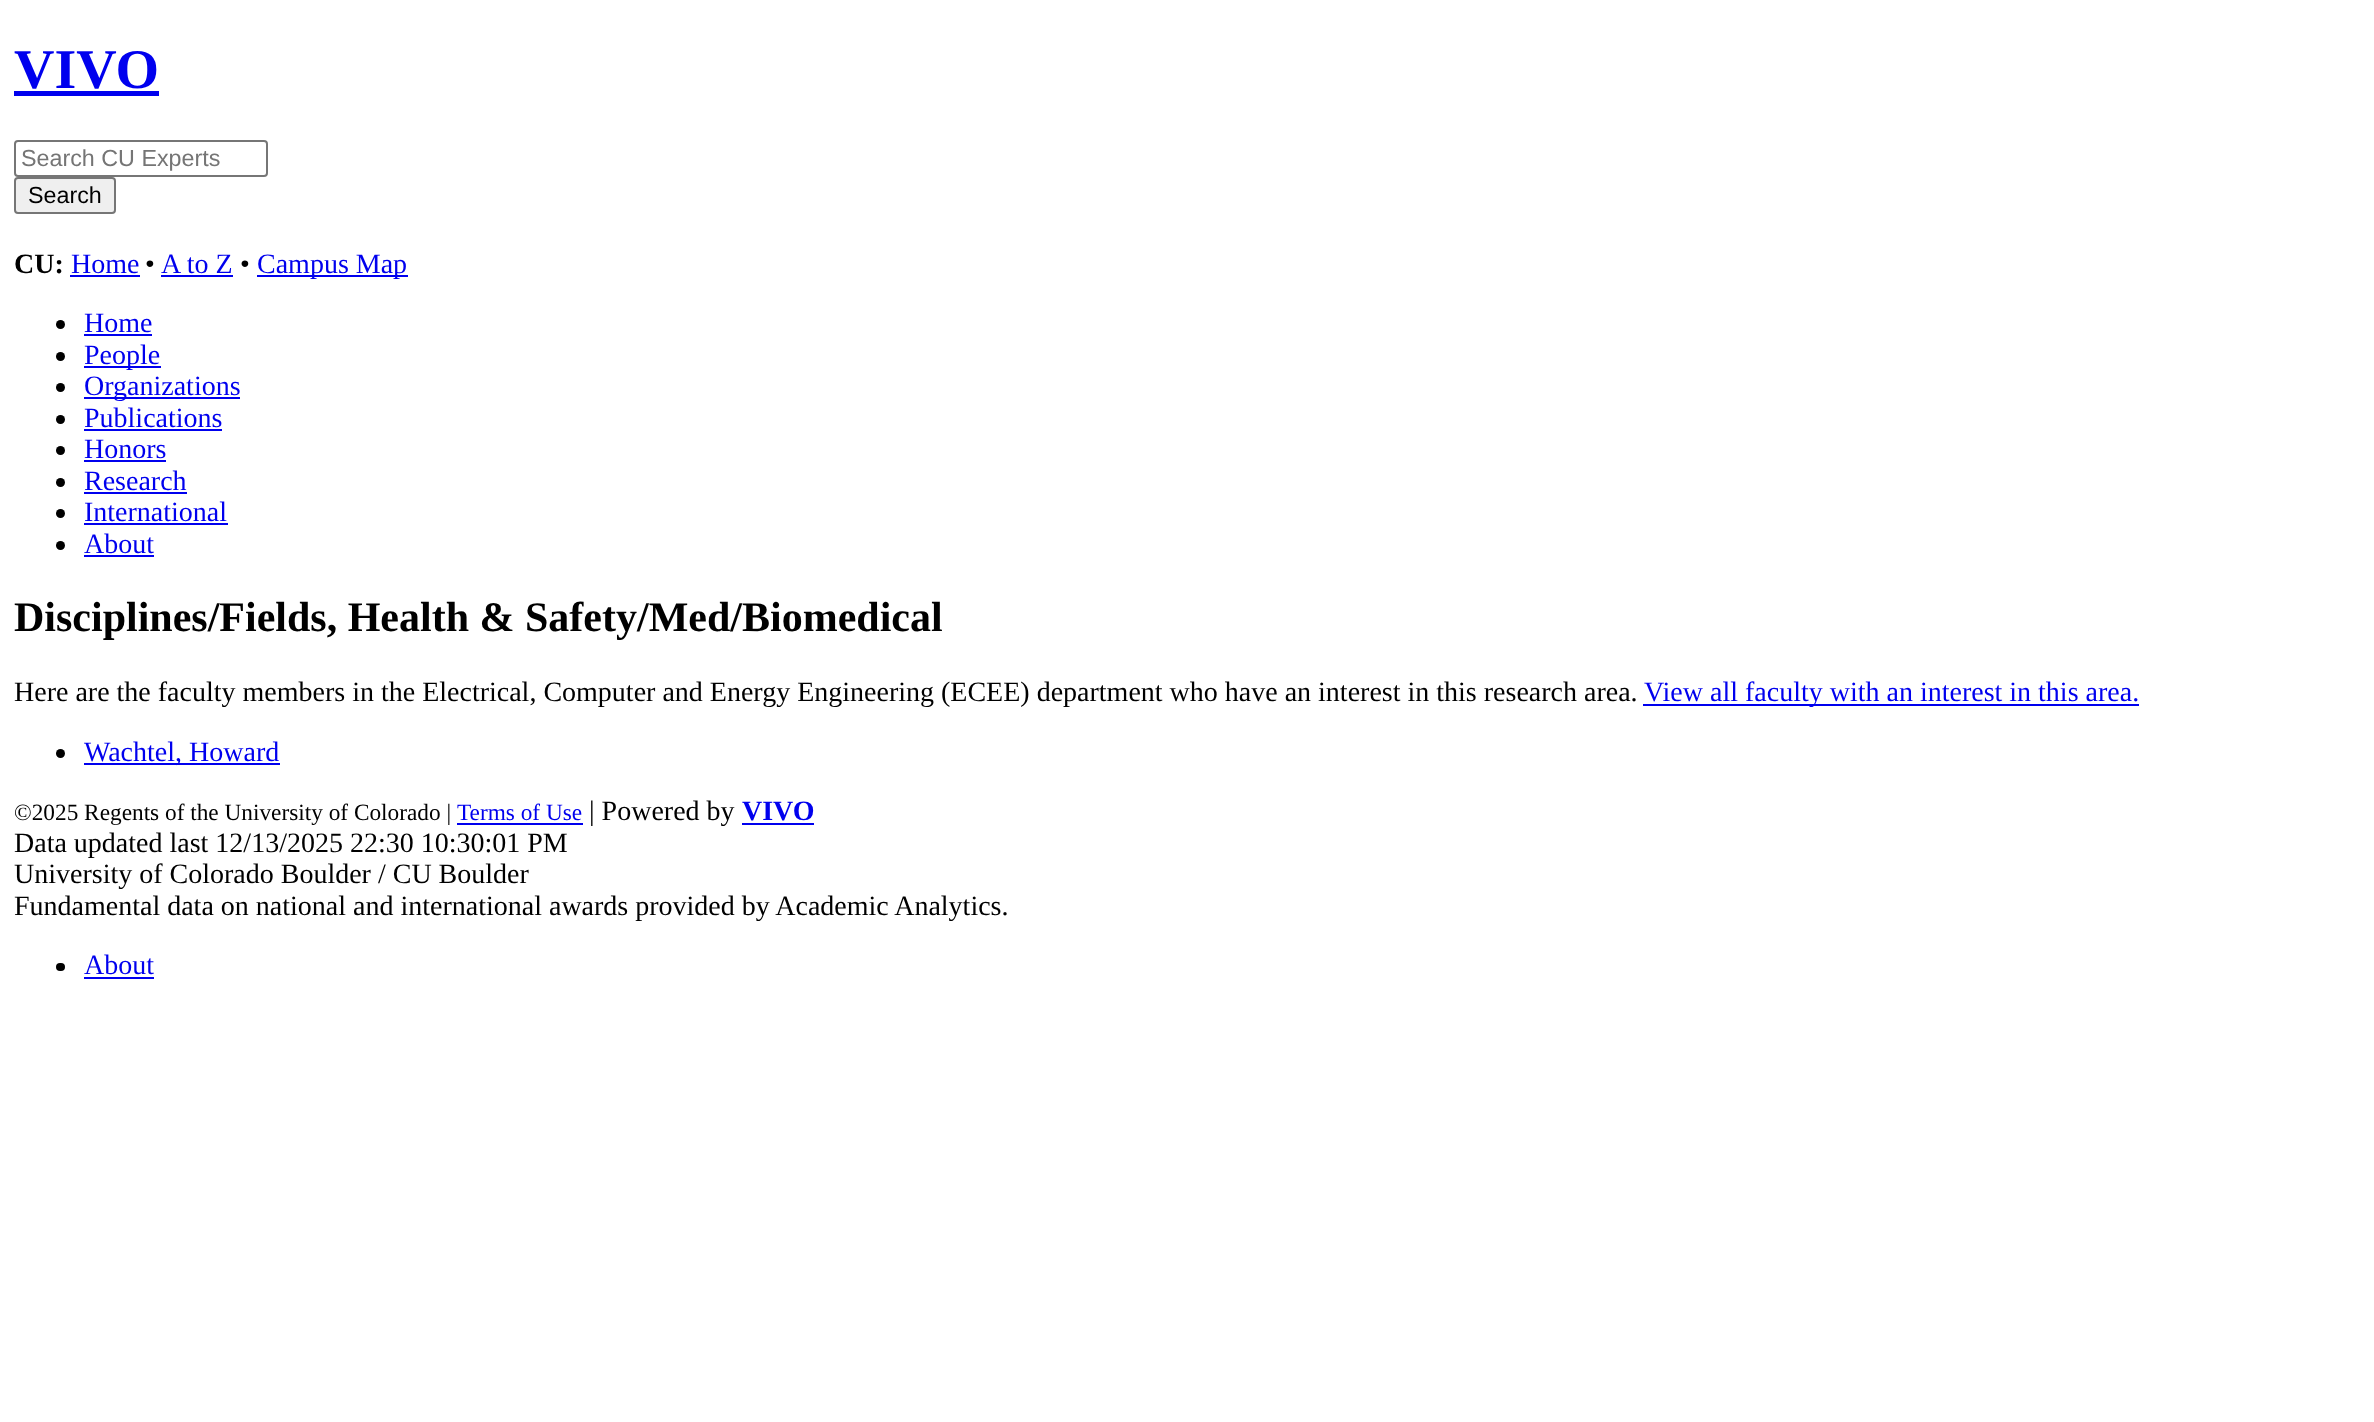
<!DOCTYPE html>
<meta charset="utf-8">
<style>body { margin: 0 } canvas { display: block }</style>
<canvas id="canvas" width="2374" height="1422"></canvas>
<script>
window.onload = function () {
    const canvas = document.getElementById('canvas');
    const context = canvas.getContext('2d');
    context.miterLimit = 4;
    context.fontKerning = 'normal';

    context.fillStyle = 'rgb(255, 255, 255)';
    context.fillRect(0, 0, 2374, 1422);
    context.fillStyle = 'rgb(0, 0, 238)';
    context.fillRect(14, 91, 145, 5);
    context.beginPath();
    context.roundRect(15, 141, 252, 35, 3);
    context.strokeStyle = 'rgb(118, 118, 118)';
    context.lineWidth = 2;
    context.stroke();
    context.fillStyle = 'rgb(239, 239, 239)';
    context.beginPath();
    context.roundRect(15, 178, 100, 35, 3);
    context.fill();
    context.stroke();
    context.fillStyle = 'rgb(0, 0, 238)';
    context.fillRect(70, 275, 70, 2);
    context.fillRect(161, 275, 72, 2);
    context.fillRect(257, 275, 151, 2);
    context.fillStyle = 'rgb(0, 0, 0)';
    context.beginPath();
    context.arc(60.5, 324.5, 4.5, 0, 2 * Math.PI);
    context.fill();
    context.fillStyle = 'rgb(0, 0, 238)';
    context.fillRect(84, 334, 68, 2);
    context.fillStyle = 'rgb(0, 0, 0)';
    context.beginPath();
    context.arc(60.5, 356.5, 4.5, 0, 2 * Math.PI);
    context.fill();
    context.fillStyle = 'rgb(0, 0, 238)';
    context.fillRect(84, 366, 77, 2);
    context.fillStyle = 'rgb(0, 0, 0)';
    context.beginPath();
    context.arc(60.5, 387.5, 4.5, 0, 2 * Math.PI);
    context.fill();
    context.fillStyle = 'rgb(0, 0, 238)';
    context.fillRect(84, 397, 156, 2);
    context.fillStyle = 'rgb(0, 0, 0)';
    context.beginPath();
    context.arc(60.5, 419.5, 4.5, 0, 2 * Math.PI);
    context.fill();
    context.fillStyle = 'rgb(0, 0, 238)';
    context.fillRect(84, 429, 138, 2);
    context.fillStyle = 'rgb(0, 0, 0)';
    context.beginPath();
    context.arc(60.5, 450.5, 4.5, 0, 2 * Math.PI);
    context.fill();
    context.fillStyle = 'rgb(0, 0, 238)';
    context.fillRect(84, 460, 82, 2);
    context.fillStyle = 'rgb(0, 0, 0)';
    context.beginPath();
    context.arc(60.5, 482.5, 4.5, 0, 2 * Math.PI);
    context.fill();
    context.fillStyle = 'rgb(0, 0, 238)';
    context.fillRect(84, 492, 103, 2);
    context.fillStyle = 'rgb(0, 0, 0)';
    context.beginPath();
    context.arc(60.5, 513.5, 4.5, 0, 2 * Math.PI);
    context.fill();
    context.fillStyle = 'rgb(0, 0, 238)';
    context.fillRect(84, 523, 144, 2);
    context.fillStyle = 'rgb(0, 0, 0)';
    context.beginPath();
    context.arc(60.5, 545.5, 4.5, 0, 2 * Math.PI);
    context.fill();
    context.fillStyle = 'rgb(0, 0, 238)';
    context.fillRect(84, 555, 70, 2);
    context.fillRect(1643, 704, 496, 2);
    context.fillStyle = 'rgb(0, 0, 0)';
    context.beginPath();
    context.arc(60.5, 753.5, 4.5, 0, 2 * Math.PI);
    context.fill();
    context.fillStyle = 'rgb(0, 0, 238)';
    context.fillRect(84, 763, 196, 2);
    context.fillRect(457, 823, 126, 2);
    context.fillRect(742, 823, 72, 2);
    context.fillStyle = 'rgb(0, 0, 0)';
    context.beginPath();
    context.roundRect(56, 963, 9, 8, 4);
    context.fill();
    context.fillStyle = 'rgb(0, 0, 238)';
    context.fillRect(84, 977, 70, 2);
    context.font = 'bold 56px Liberation Serif';
    context.fillText('VIVO', 14, 88);
    context.font = '23.3px Liberation Sans';
    context.fillStyle = 'rgb(117, 117, 117)';
    context.fillText('Search CU Experts', 21, 166);
    context.fillStyle = 'rgb(0, 0, 0)';
    context.fillText('Search', 28, 203);
    context.font = 'bold 28px Liberation Serif';
    context.fillText('CU:', 14, 273);
    context.font = '28px Liberation Serif';
    context.fillStyle = 'rgb(0, 0, 238)';
    context.fillText('Home', 71, 273);
    context.fillStyle = 'rgb(0, 0, 0)';
    context.fillText('•', 145, 273);
    context.fillStyle = 'rgb(0, 0, 238)';
    context.fillText('A to Z', 161, 273);
    context.fillStyle = 'rgb(0, 0, 0)';
    context.fillText('•', 240, 273);
    context.fillStyle = 'rgb(0, 0, 238)';
    context.fillText('Campus Map', 257, 273);
    context.fillText('Home', 84, 332);
    context.fillText('People', 84, 364);
    context.fillText('Organizations', 84, 395);
    context.fillText('Publications', 84, 427);
    context.fillText('Honors', 84, 458);
    context.fillText('Research', 84, 490);
    context.fillText('International', 84, 521);
    context.fillText('About', 84, 553);
    context.font = 'bold 42px Liberation Serif';
    context.fillStyle = 'rgb(0, 0, 0)';
    context.fillText('Disciplines/Fields, Health & Safety/Med/Biomedical', 14, 631);
    context.font = '28px Liberation Serif';
    context.fillText('Here are the faculty members in the Electrical, Computer and Energy Engineering (ECEE) department who have an interest in this research area.', 14, 701);
    context.fillStyle = 'rgb(0, 0, 238)';
    context.fillText('View all faculty with an interest in this area.', 1644, 701);
    context.fillText('Wachtel, Howard', 84, 761);
    context.font = '23.3px Liberation Serif';
    context.fillStyle = 'rgb(0, 0, 0)';
    context.fillText('©2025 Regents of the University of Colorado |', 14, 820);
    context.fillStyle = 'rgb(0, 0, 238)';
    context.fillText('Terms of Use', 457, 820);
    context.font = '28px Liberation Serif';
    context.fillStyle = 'rgb(0, 0, 0)';
    context.fillText('| Powered by', 589, 820);
    context.font = 'bold 28px Liberation Serif';
    context.fillStyle = 'rgb(0, 0, 238)';
    context.fillText('VIVO', 742, 820);
    context.font = '28px Liberation Serif';
    context.fillStyle = 'rgb(0, 0, 0)';
    context.fillText('Data updated last 12/13/2025 22:30 10:30:01 PM', 14, 852);
    context.fillText('University of Colorado Boulder / CU Boulder', 14, 883);
    context.fillText('Fundamental data on national and international awards provided by Academic Analytics.', 14, 915);
    context.fillStyle = 'rgb(0, 0, 238)';
    context.fillText('About', 84, 974);
};
</script>
